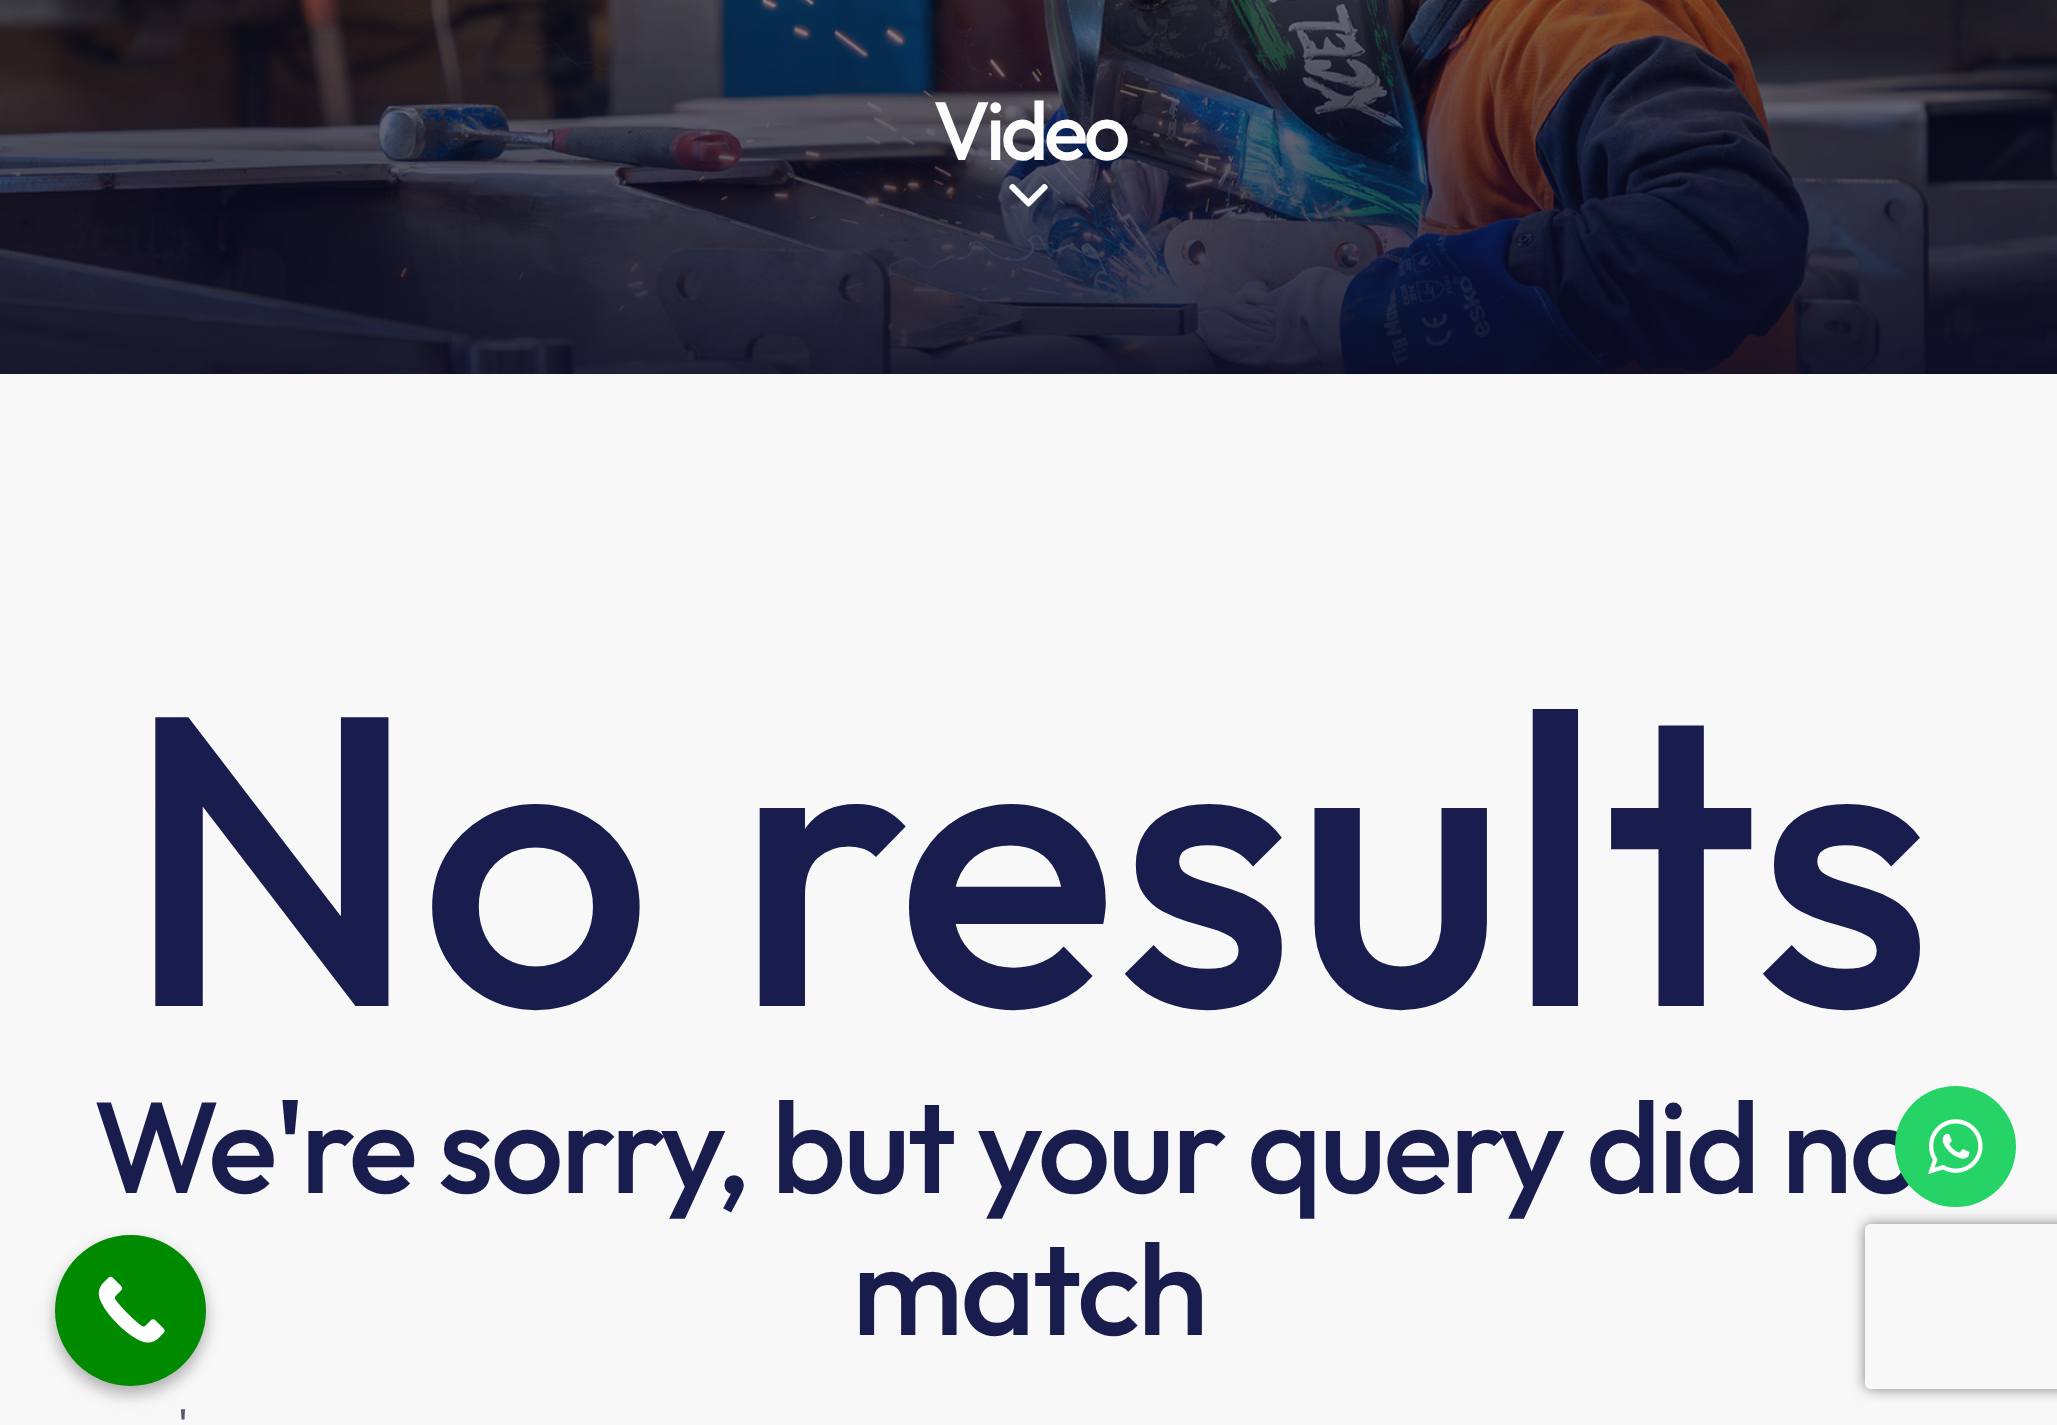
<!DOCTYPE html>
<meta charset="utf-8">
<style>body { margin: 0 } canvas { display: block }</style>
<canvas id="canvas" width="2057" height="1425"></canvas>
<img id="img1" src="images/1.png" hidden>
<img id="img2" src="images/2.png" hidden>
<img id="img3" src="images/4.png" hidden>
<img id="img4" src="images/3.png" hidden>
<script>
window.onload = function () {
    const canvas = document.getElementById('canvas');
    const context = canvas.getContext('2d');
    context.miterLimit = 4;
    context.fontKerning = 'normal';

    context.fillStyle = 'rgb(248, 248, 248)';
    context.fillRect(0, 0, 2057, 1425);
    context.drawImage(document.getElementById('img1'), 0, 0, 2057, 374);
    context.drawImage(document.getElementById('img2'), 1009, 183, 39, 24);
    context.fillStyle = 'rgba(0, 0, 0, 0.3)';
    context.filter = 'blur(8px)';
    context.beginPath();
    context.roundRect(55, 1243, 151, 151, 75.5);
    context.fill();
    context.filter = 'none';
    context.fillStyle = 'rgb(0, 138, 0)';
    context.beginPath();
    context.arc(130.5, 1310.5, 75.5, 0, 2 * Math.PI);
    context.fill();
    context.drawImage(document.getElementById('img3'), 98, 1276, 67, 67);
    context.save();
    context.beginPath();
    context.moveTo(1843, 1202);
    context.lineTo(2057, 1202);
    context.lineTo(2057, 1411);
    context.lineTo(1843, 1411);
    context.closePath();
    context.moveTo(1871, 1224);
    context.lineTo(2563, 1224);
    context.bezierCurveTo(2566.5, 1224, 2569, 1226.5, 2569, 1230);
    context.lineTo(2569, 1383);
    context.bezierCurveTo(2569, 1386.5, 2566.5, 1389, 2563, 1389);
    context.lineTo(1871, 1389);
    context.bezierCurveTo(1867.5, 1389, 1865, 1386.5, 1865, 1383);
    context.lineTo(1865, 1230);
    context.bezierCurveTo(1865, 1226.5, 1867.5, 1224, 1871, 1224);
    context.closePath();
    context.clip('evenodd');
    context.fillStyle = 'rgb(128, 128, 128)';
    context.filter = 'blur(7px)';
    context.beginPath();
    context.roundRect(1865, 1224, 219, 165, 6);
    context.fill();
    context.filter = 'none';
    context.restore();
    context.letterSpacing = '-4.5px';
    context.font = '500 82.5px Outfit';
    context.fillStyle = 'rgb(252, 252, 252)';
    context.fillText('Video', 933, 160);
    context.letterSpacing = '0px';
    context.font = '500 412.5px Outfit';
    context.fillStyle = 'rgb(24, 29, 78)';
    context.fillText('No results', 124, 1006);
    context.letterSpacing = '-2.75px';
    context.font = '500 129.25px Outfit';
    context.fillText('We\'re sorry, but your query did no', 93, 1193);
    context.fillText('match', 852, 1335);
    context.letterSpacing = '0px';
    context.font = '50px DM Sans';
    context.fillStyle = 'rgb(90, 90, 103)';
    context.fillText('\'', 179, 1447);
    context.fillStyle = 'rgb(37, 211, 102)';
    context.beginPath();
    context.arc(1955.5, 1146.5, 60.5, 0, 2 * Math.PI);
    context.fill();
    context.drawImage(document.getElementById('img4'), 1928, 1119, 55, 55);
};
</script>
